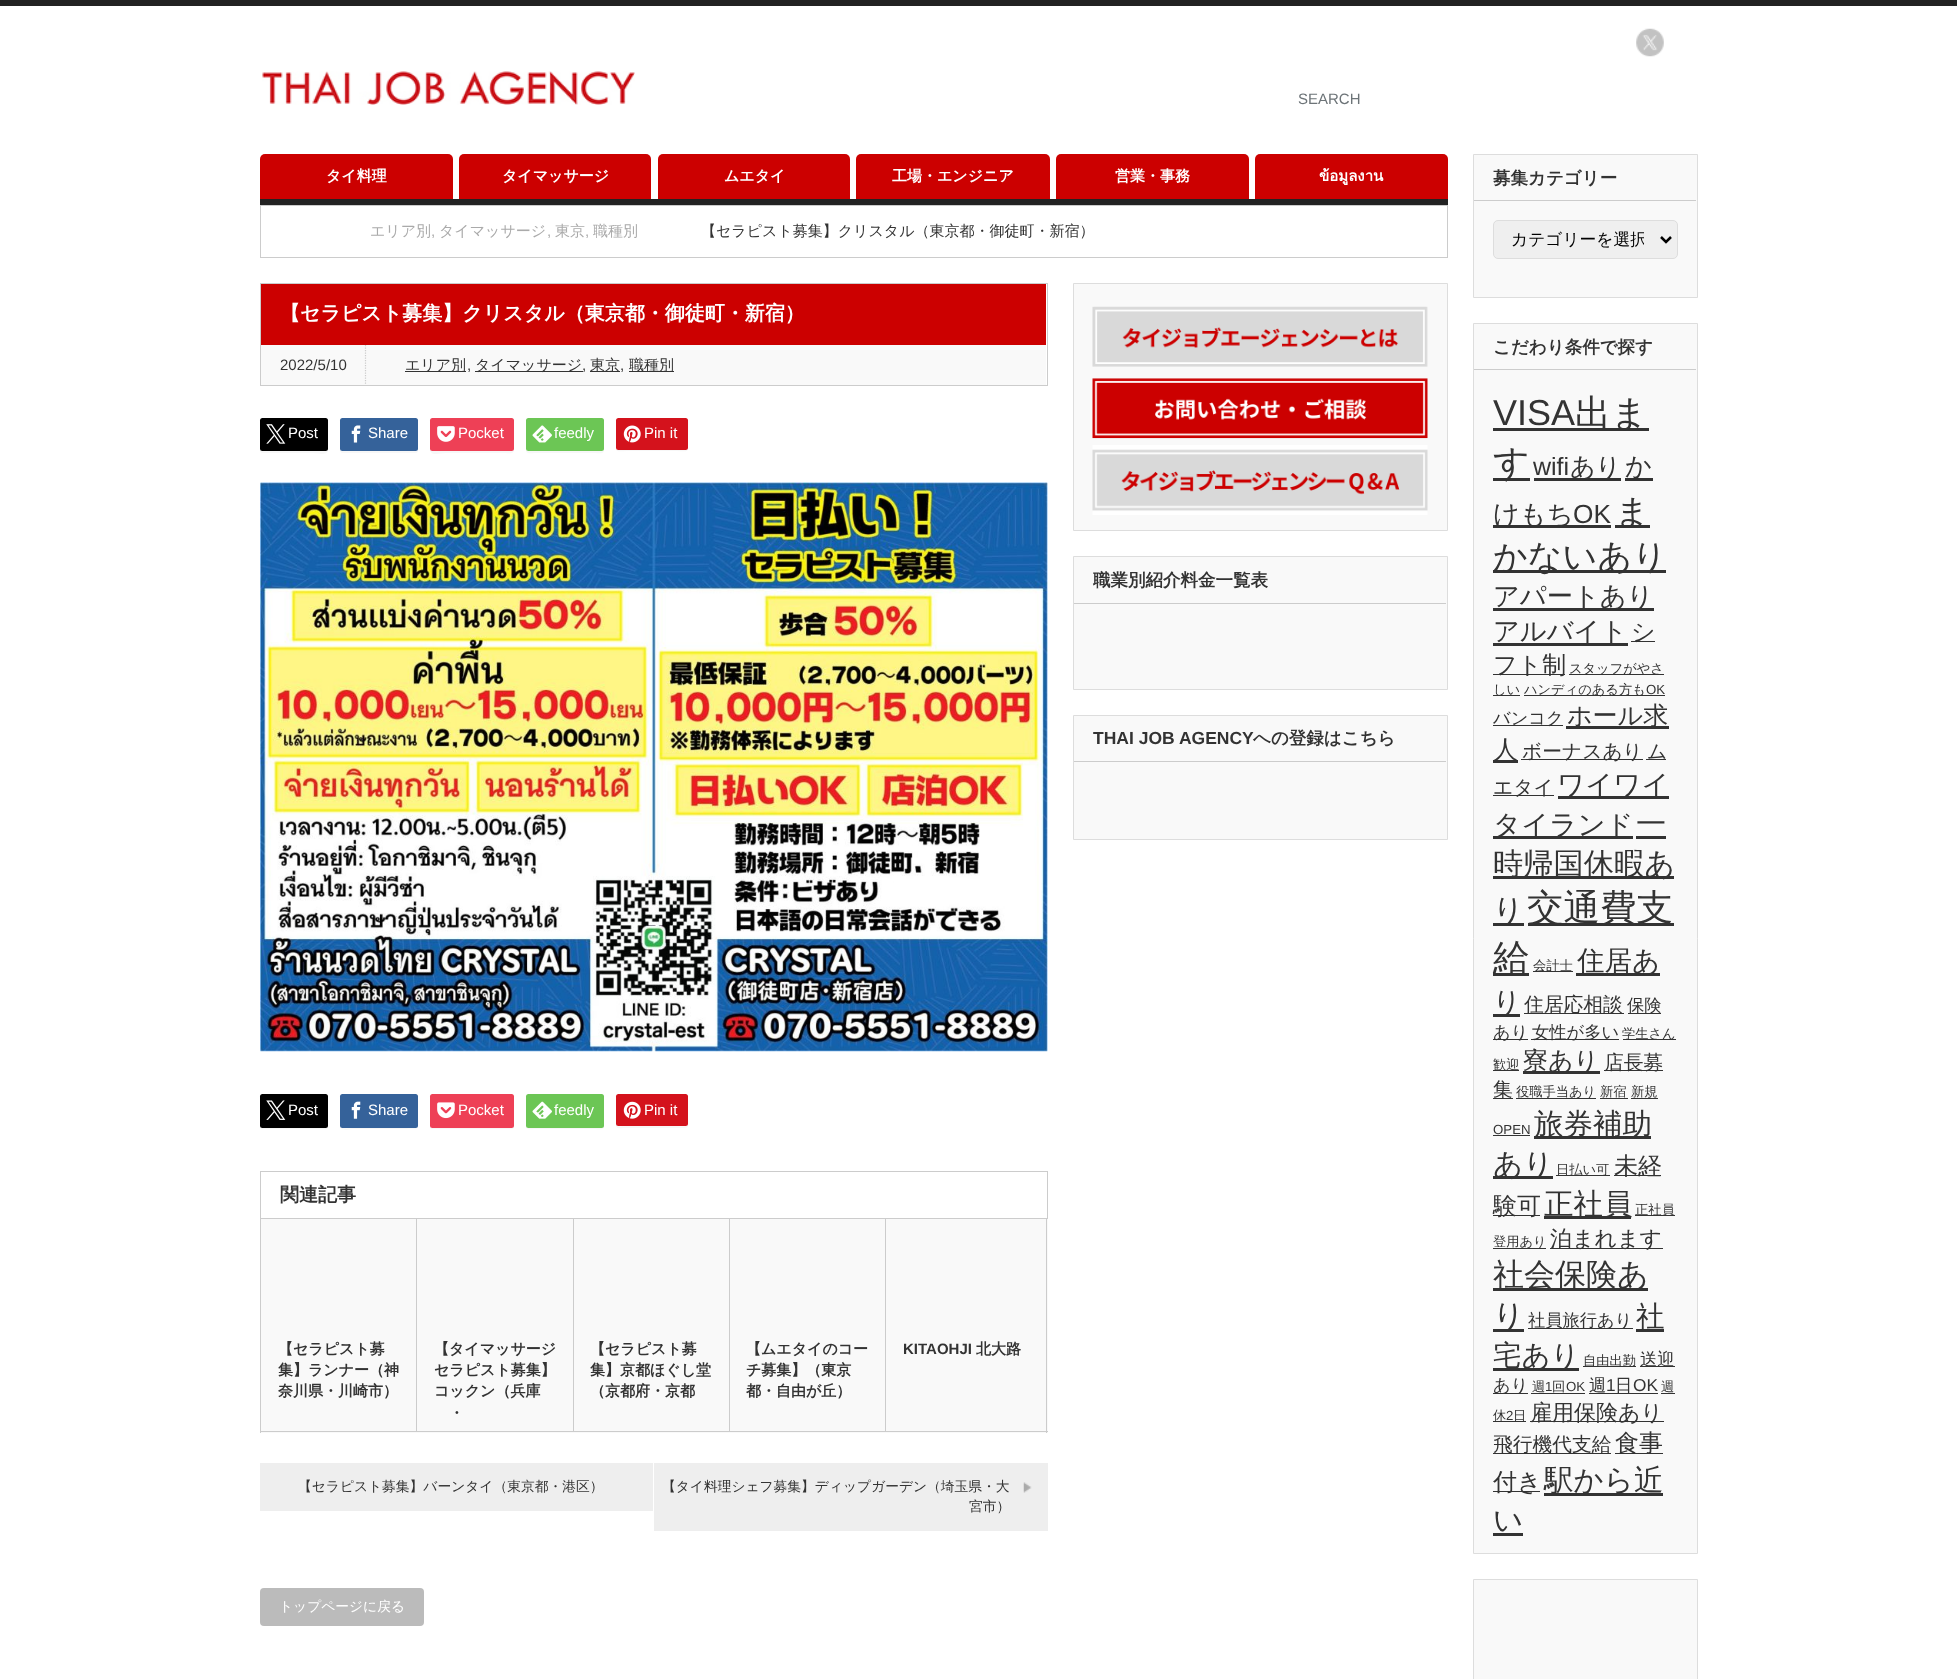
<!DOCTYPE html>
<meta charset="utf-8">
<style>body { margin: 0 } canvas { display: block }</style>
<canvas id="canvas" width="1957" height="1679"></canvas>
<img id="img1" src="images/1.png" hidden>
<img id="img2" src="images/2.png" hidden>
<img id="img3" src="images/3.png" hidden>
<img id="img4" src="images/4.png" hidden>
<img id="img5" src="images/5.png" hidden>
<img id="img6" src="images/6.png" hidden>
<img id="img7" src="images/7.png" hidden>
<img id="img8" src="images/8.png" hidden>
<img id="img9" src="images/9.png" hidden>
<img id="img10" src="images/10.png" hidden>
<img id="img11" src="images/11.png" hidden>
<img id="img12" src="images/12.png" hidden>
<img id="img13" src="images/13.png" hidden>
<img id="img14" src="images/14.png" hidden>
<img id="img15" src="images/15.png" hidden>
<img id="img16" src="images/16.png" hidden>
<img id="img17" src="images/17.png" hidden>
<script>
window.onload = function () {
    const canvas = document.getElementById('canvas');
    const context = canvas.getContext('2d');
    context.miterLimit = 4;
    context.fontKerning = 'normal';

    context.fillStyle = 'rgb(255, 255, 255)';
    context.fillRect(0, 0, 1957, 1679);
    context.fillStyle = 'rgb(34, 34, 34)';
    context.fillRect(0, 0, 1957, 6);
    context.drawImage(document.getElementById('img1'), 1636, 28, 28, 29);
    context.drawImage(document.getElementById('img2'), 262, 71, 373, 34);
    context.fillRect(260, 199, 1188, 6);
    context.fillStyle = 'rgb(204, 0, 0)';
    context.beginPath();
    context.roundRect(260, 154, 193, 45, [5, 5, 0, 0]);
    context.fill();
    context.beginPath();
    context.roundRect(459, 154, 192, 45, [5, 5, 0, 0]);
    context.fill();
    context.beginPath();
    context.roundRect(658, 154, 192, 45, [5, 5, 0, 0]);
    context.fill();
    context.beginPath();
    context.roundRect(856, 154, 194, 45, [5, 5, 0, 0]);
    context.fill();
    context.beginPath();
    context.roundRect(1056, 154, 193, 45, [5, 5, 0, 0]);
    context.fill();
    context.beginPath();
    context.roundRect(1255, 154, 193, 45, [5, 5, 0, 0]);
    context.fill();
    context.strokeStyle = 'rgb(204, 204, 204)';
    context.strokeRect(260.5, 205.5, 1187, 52);
    context.strokeRect(260.5, 283.5, 787, 102);
    context.fillRect(261, 284, 785, 61);
    context.fillStyle = 'rgb(249, 249, 249)';
    context.fillRect(261, 345, 785, 40);
    context.save();
    context.beginPath();
    context.rect(261, 345, 785, 40);
    context.clip();
    context.beginPath();
    context.moveTo(365.5, 345);
    context.lineTo(365.5, 386);
    context.lineWidth = 1.2;
    context.setLineDash([1.25, 1.25]);
    context.stroke();
    context.beginPath();
    context.moveTo(261, 385.5);
    context.lineTo(366, 385.5);
    context.stroke();
    context.restore();
    context.fillStyle = 'rgb(51, 51, 51)';
    context.fillRect(405, 371, 61, 1);
    context.fillRect(475, 371, 108, 1);
    context.fillRect(590, 371, 30, 1);
    context.fillRect(629, 371, 45, 1);
    context.fillStyle = 'rgb(247, 247, 247)';
    context.beginPath();
    context.moveTo(260, 449);
    context.bezierCurveTo(260, 451, 260, 453, 262, 453);
    context.lineTo(304, 453);
    context.bezierCurveTo(331, 453, 328, 459, 328, 436);
    context.bezierCurveTo(328, 433, 329, 422, 328, 420);
    context.lineTo(328, 449);
    context.bezierCurveTo(328, 450, 326, 451, 325, 451);
    context.lineTo(262, 451);
    context.bezierCurveTo(261, 451, 260, 450, 260, 449);
    context.closePath();
    context.fill();
    context.fillStyle = 'rgb(0, 0, 0)';
    context.beginPath();
    context.roundRect(260, 418, 68, 33, 2.5);
    context.fill();
    context.drawImage(document.getElementById('img3'), 266, 424, 20, 20);
    context.fillStyle = 'rgb(247, 247, 247)';
    context.beginPath();
    context.moveTo(340, 449);
    context.lineTo(340, 450);
    context.bezierCurveTo(340, 452, 341, 453, 342, 453);
    context.lineTo(416, 453);
    context.bezierCurveTo(417, 453, 418, 452, 418, 450);
    context.lineTo(418, 422);
    context.lineTo(418, 420);
    context.lineTo(418, 449);
    context.bezierCurveTo(418, 450, 416, 451, 415, 451);
    context.lineTo(342, 451);
    context.bezierCurveTo(341, 451, 340, 450, 340, 449);
    context.closePath();
    context.fill();
    context.fillStyle = 'rgb(53, 98, 154)';
    context.beginPath();
    context.roundRect(340, 418, 78, 33, 2.5);
    context.fill();
    context.drawImage(document.getElementById('img4'), 351, 425, 10, 18);
    context.fillStyle = 'rgb(247, 247, 247)';
    context.beginPath();
    context.moveTo(430, 449);
    context.bezierCurveTo(430, 457, 439, 453, 446, 453);
    context.lineTo(498, 453);
    context.bezierCurveTo(516, 453, 514, 456, 514, 441);
    context.lineTo(514, 420);
    context.lineTo(514, 449);
    context.bezierCurveTo(514, 450, 513, 451, 511, 451);
    context.lineTo(432, 451);
    context.bezierCurveTo(431, 451, 430, 450, 430, 449);
    context.closePath();
    context.fill();
    context.fillStyle = 'rgb(238, 64, 86)';
    context.beginPath();
    context.roundRect(430, 418, 84, 33, 2.5);
    context.fill();
    context.drawImage(document.getElementById('img5'), 437, 426, 18, 16);
    context.fillStyle = 'rgb(247, 247, 247)';
    context.beginPath();
    context.moveTo(526, 420);
    context.lineTo(526, 441);
    context.bezierCurveTo(526, 456, 524, 453, 541, 453);
    context.lineTo(589, 453);
    context.bezierCurveTo(606, 453, 604, 456, 604, 441);
    context.lineTo(604, 420);
    context.lineTo(604, 449);
    context.bezierCurveTo(604, 450, 603, 451, 601, 451);
    context.lineTo(529, 451);
    context.bezierCurveTo(527, 451, 526, 450, 526, 449);
    context.closePath();
    context.fill();
    context.fillStyle = 'rgb(108, 198, 85)';
    context.beginPath();
    context.roundRect(526, 418, 78, 33, 2.5);
    context.fill();
    context.drawImage(document.getElementById('img6'), 532, 425, 20, 18);
    context.fillStyle = 'rgb(247, 247, 247)';
    context.beginPath();
    context.moveTo(616, 420);
    context.lineTo(616, 440);
    context.bezierCurveTo(616, 454, 614, 451, 630, 451);
    context.lineTo(674, 451);
    context.bezierCurveTo(690, 451, 688, 454, 688, 440);
    context.bezierCurveTo(688, 436, 689, 422, 688, 420);
    context.lineTo(688, 448);
    context.bezierCurveTo(688, 449, 686, 450, 685, 450);
    context.lineTo(619, 450);
    context.bezierCurveTo(617, 450, 616, 449, 616, 448);
    context.closePath();
    context.fill();
    context.fillStyle = 'rgb(212, 18, 28)';
    context.beginPath();
    context.roundRect(616, 418, 72, 32, 2.5);
    context.fill();
    context.drawImage(document.getElementById('img7'), 623, 425, 18, 18);
    context.drawImage(document.getElementById('img8'), 260, 482, 788, 570);
    context.fillStyle = 'rgb(247, 247, 247)';
    context.beginPath();
    context.moveTo(260, 1125);
    context.lineTo(260, 1126);
    context.bezierCurveTo(260, 1128, 261, 1129, 262, 1129);
    context.lineTo(326, 1129);
    context.bezierCurveTo(327, 1129, 328, 1128, 328, 1126);
    context.lineTo(328, 1098);
    context.lineTo(327, 1096);
    context.lineTo(328, 1115);
    context.bezierCurveTo(328, 1130, 330, 1128, 315, 1128);
    context.lineTo(273, 1128);
    context.bezierCurveTo(268, 1128, 260, 1129, 260, 1125);
    context.closePath();
    context.fill();
    context.fillStyle = 'rgb(0, 0, 0)';
    context.beginPath();
    context.roundRect(260, 1094, 68, 34, 2.5);
    context.fill();
    context.drawImage(document.getElementById('img9'), 266, 1100, 20, 20);
    context.fillStyle = 'rgb(247, 247, 247)';
    context.beginPath();
    context.moveTo(340, 1125);
    context.bezierCurveTo(340, 1132, 349, 1129, 355, 1129);
    context.lineTo(403, 1129);
    context.bezierCurveTo(422, 1129, 418, 1131, 418, 1112);
    context.bezierCurveTo(418, 1109, 419, 1098, 417, 1096);
    context.lineTo(418, 1120);
    context.bezierCurveTo(418, 1131, 416, 1128, 403, 1128);
    context.lineTo(355, 1128);
    context.bezierCurveTo(349, 1128, 340, 1130, 340, 1125);
    context.closePath();
    context.fill();
    context.fillStyle = 'rgb(53, 98, 154)';
    context.beginPath();
    context.roundRect(340, 1094, 78, 34, 2.5);
    context.fill();
    context.drawImage(document.getElementById('img10'), 351, 1101, 10, 18);
    context.fillStyle = 'rgb(247, 247, 247)';
    context.beginPath();
    context.moveTo(430, 1125);
    context.bezierCurveTo(430, 1127, 430, 1129, 432, 1129);
    context.lineTo(512, 1129);
    context.bezierCurveTo(515, 1129, 514, 1123, 514, 1122);
    context.lineTo(514, 1096);
    context.lineTo(514, 1125);
    context.bezierCurveTo(514, 1126, 513, 1128, 511, 1128);
    context.lineTo(432, 1128);
    context.bezierCurveTo(431, 1128, 430, 1126, 430, 1125);
    context.closePath();
    context.fill();
    context.fillStyle = 'rgb(238, 64, 86)';
    context.beginPath();
    context.roundRect(430, 1094, 84, 34, 2.5);
    context.fill();
    context.drawImage(document.getElementById('img11'), 437, 1102, 18, 17);
    context.fillStyle = 'rgb(247, 247, 247)';
    context.beginPath();
    context.moveTo(526, 1096);
    context.lineTo(526, 1117);
    context.bezierCurveTo(526, 1132, 524, 1129, 541, 1129);
    context.lineTo(589, 1129);
    context.bezierCurveTo(606, 1129, 604, 1132, 604, 1117);
    context.lineTo(604, 1096);
    context.lineTo(604, 1125);
    context.bezierCurveTo(604, 1126, 603, 1128, 601, 1128);
    context.lineTo(529, 1128);
    context.bezierCurveTo(527, 1128, 526, 1126, 526, 1125);
    context.closePath();
    context.fill();
    context.fillStyle = 'rgb(108, 198, 85)';
    context.beginPath();
    context.roundRect(526, 1094, 78, 34, 2.5);
    context.fill();
    context.drawImage(document.getElementById('img12'), 532, 1101, 20, 18);
    context.fillStyle = 'rgb(247, 247, 247)';
    context.beginPath();
    context.moveTo(616, 1096);
    context.lineTo(616, 1116);
    context.bezierCurveTo(616, 1131, 614, 1128, 630, 1128);
    context.lineTo(674, 1128);
    context.bezierCurveTo(692, 1128, 688, 1130, 688, 1112);
    context.bezierCurveTo(688, 1109, 689, 1098, 687, 1096);
    context.lineTo(688, 1115);
    context.bezierCurveTo(688, 1129, 689, 1126, 674, 1126);
    context.lineTo(630, 1126);
    context.bezierCurveTo(618, 1126, 616, 1129, 616, 1119);
    context.closePath();
    context.fill();
    context.fillStyle = 'rgb(212, 18, 28)';
    context.beginPath();
    context.roundRect(616, 1094, 72, 32, 2.5);
    context.fill();
    context.drawImage(document.getElementById('img13'), 623, 1101, 18, 18);
    context.strokeRect(260.5, 1171.5, 787, 47);
    context.fillStyle = 'rgb(249, 249, 249)';
    context.fillRect(261, 1219, 787, 214);
    context.fillStyle = 'rgb(204, 204, 204)';
    context.fillRect(1046, 1219, 1, 214);
    context.fillRect(260, 1431, 788, 1);
    context.fillRect(260, 1219, 1, 214);
    context.fillRect(416, 1219, 1, 212);
    context.fillRect(573, 1219, 1, 212);
    context.fillRect(729, 1219, 1, 212);
    context.fillRect(885, 1219, 1, 212);
    context.fillStyle = 'rgb(238, 238, 238)';
    context.fillRect(260, 1463, 393, 48);
    context.fillRect(654, 1463, 394, 68);
    context.drawImage(document.getElementById('img14'), 1023, 1482, 9, 11);
    context.fillStyle = 'rgb(187, 187, 187)';
    context.beginPath();
    context.roundRect(260, 1588, 164, 38, 4);
    context.fill();
    context.fillStyle = 'rgb(249, 249, 249)';
    context.beginPath();
    context.rect(1073.5, 283.5, 374, 247);
    context.fill();
    context.strokeStyle = 'rgb(221, 221, 221)';
    context.stroke();
    context.drawImage(document.getElementById('img15'), 1092, 306, 336, 61);
    context.drawImage(document.getElementById('img16'), 1092, 378, 336, 61);
    context.drawImage(document.getElementById('img17'), 1092, 445, 336, 70);
    context.beginPath();
    context.rect(1073.5, 556.5, 374, 133);
    context.fill();
    context.stroke();
    context.fillStyle = 'rgb(204, 204, 204)';
    context.fillRect(1074, 603, 372, 1);
    context.fillStyle = 'rgb(249, 249, 249)';
    context.beginPath();
    context.rect(1073.5, 715.5, 374, 124);
    context.fill();
    context.stroke();
    context.fillStyle = 'rgb(204, 204, 204)';
    context.fillRect(1074, 761, 372, 1);
    context.fillStyle = 'rgb(249, 249, 249)';
    context.beginPath();
    context.rect(1473.5, 154.5, 224, 143);
    context.fill();
    context.stroke();
    context.fillStyle = 'rgb(204, 204, 204)';
    context.fillRect(1474, 200, 222, 1);
    context.fillStyle = 'rgb(239, 239, 239)';
    context.beginPath();
    context.roundRect(1493.5, 220.5, 184, 38, 4.5);
    context.fill();
    context.stroke();
    context.beginPath();
    context.moveTo(1661, 237);
    context.lineTo(1666, 242);
    context.lineTo(1671, 237);
    context.strokeStyle = 'rgb(0, 0, 0)';
    context.lineWidth = 2.5;
    context.stroke();
    context.fillStyle = 'rgb(249, 249, 249)';
    context.beginPath();
    context.rect(1473.5, 323.5, 224, 1230);
    context.fill();
    context.strokeStyle = 'rgb(221, 221, 221)';
    context.lineWidth = 1;
    context.stroke();
    context.fillStyle = 'rgb(204, 204, 204)';
    context.fillRect(1474, 369, 222, 1);
    context.fillStyle = 'rgb(51, 51, 51)';
    context.fillRect(1493, 428, 156, 3);
    context.fillRect(1493, 478, 37, 3);
    context.fillRect(1534, 478, 87, 3);
    context.fillRect(1625, 478, 28, 3);
    context.fillRect(1493, 525, 118, 3);
    context.fillRect(1615, 525, 35, 3);
    context.fillRect(1493, 570, 173, 3);
    context.fillRect(1493, 608, 161, 3);
    context.fillRect(1493, 643, 135, 3);
    context.fillRect(1631, 641, 24, 1);
    context.fillRect(1493, 674, 72, 1);
    context.fillRect(1569, 674, 95, 1);
    context.fillRect(1493, 695, 27, 1);
    context.fillRect(1524, 695, 141, 1);
    context.fillRect(1493, 725, 70, 1);
    context.fillRect(1566, 726, 103, 3);
    context.fillRect(1493, 760, 25, 3);
    context.fillRect(1521, 759, 122, 1);
    context.fillRect(1646, 759, 20, 1);
    context.fillRect(1493, 795, 61, 1);
    context.fillRect(1558, 796, 111, 3);
    context.fillRect(1493, 836, 140, 3);
    context.fillRect(1636, 836, 30, 3);
    context.fillRect(1493, 876, 181, 3);
    context.fillRect(1493, 923, 31, 3);
    context.fillRect(1528, 923, 146, 3);
    context.fillRect(1493, 973, 36, 3);
    context.fillRect(1533, 971, 40, 1);
    context.fillRect(1576, 973, 84, 3);
    context.fillRect(1493, 1014, 27, 3);
    context.fillRect(1524, 1013, 100, 1);
    context.fillRect(1628, 1013, 33, 1);
    context.fillRect(1493, 1039, 35, 1);
    context.fillRect(1531, 1039, 88, 1);
    context.fillRect(1623, 1039, 53, 1);
    context.fillRect(1493, 1070, 26, 1);
    context.fillRect(1523, 1071, 77, 3);
    context.fillRect(1604, 1070, 59, 1);
    context.fillRect(1493, 1098, 20, 1);
    context.fillRect(1516, 1098, 80, 1);
    context.fillRect(1631, 1098, 27, 1);
    context.fillRect(1600, 1098, 28, 1);
    context.fillRect(1493, 1135, 37, 1);
    context.fillRect(1534, 1136, 117, 3);
    context.fillRect(1493, 1176, 60, 3);
    context.fillRect(1556, 1175, 54, 1);
    context.fillRect(1614, 1175, 47, 1);
    context.fillRect(1493, 1215, 47, 1);
    context.fillRect(1544, 1216, 87, 3);
    context.fillRect(1635, 1215, 40, 1);
    context.fillRect(1493, 1248, 53, 1);
    context.fillRect(1550, 1248, 113, 1);
    context.fillRect(1493, 1288, 155, 3);
    context.fillRect(1493, 1329, 31, 3);
    context.fillRect(1528, 1328, 105, 1);
    context.fillRect(1636, 1329, 28, 3);
    context.fillRect(1493, 1368, 86, 3);
    context.fillRect(1583, 1366, 53, 1);
    context.fillRect(1640, 1366, 35, 1);
    context.fillRect(1493, 1393, 35, 1);
    context.fillRect(1531, 1393, 54, 1);
    context.fillRect(1589, 1393, 69, 1);
    context.fillRect(1661, 1393, 14, 1);
    context.fillRect(1493, 1421, 33, 1);
    context.fillRect(1530, 1421, 134, 1);
    context.fillRect(1493, 1453, 118, 1);
    context.fillRect(1615, 1453, 48, 1);
    context.fillRect(1493, 1491, 47, 1);
    context.fillRect(1544, 1493, 119, 3);
    context.fillRect(1493, 1533, 30, 3);
    context.fillStyle = 'rgb(249, 249, 249)';
    context.beginPath();
    context.rect(1473.5, 1579.5, 224, 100);
    context.fill();
    context.stroke();
    context.font = '15px Liberation Sans';
    context.fillStyle = 'rgb(109, 116, 120)';
    context.fillText('SEARCH', 1298, 104);
    context.font = 'bold 15px WenQuanYi Zen Hei';
    context.fillStyle = 'rgb(255, 255, 255)';
    context.fillText('タイ料理', 326, 181);
    context.fillText('タイマッサージ', 502, 181);
    context.fillText('ムエタイ', 724, 181);
    context.fillText('工場・エンジニア', 892, 181);
    context.fillText('営業・事務', 1115, 181);
    context.font = 'bold 15px Loma';
    context.fillText('ข้อมูลงาน', 1319, 181);
    context.font = '500 15px WenQuanYi Zen Hei';
    context.fillStyle = 'rgb(170, 170, 170)';
    context.fillText('エリア別', 370, 236);
    context.font = '15px Liberation Sans';
    context.fillText(',', 431, 236);
    context.font = '500 15px WenQuanYi Zen Hei';
    context.fillText('タイマッサージ', 439, 236);
    context.font = '15px Liberation Sans';
    context.fillText(',', 547, 236);
    context.font = '500 15px WenQuanYi Zen Hei';
    context.fillText('東京', 555, 236);
    context.font = '15px Liberation Sans';
    context.fillText(',', 585, 236);
    context.font = '500 15px WenQuanYi Zen Hei';
    context.fillText('職種別', 593, 236);
    context.fillStyle = 'rgb(51, 51, 51)';
    context.fillText('【セラピスト募集】クリスタル（東京都・御徒町・新宿）', 701, 236);
    context.font = 'bold 20px WenQuanYi Zen Hei';
    context.fillStyle = 'rgb(255, 255, 255)';
    context.fillText('【セラピスト募集】クリスタル（東京都・御徒町・新宿）', 280, 320);
    context.font = '15px Liberation Sans';
    context.fillStyle = 'rgb(51, 51, 51)';
    context.fillText('2022/5/10', 280, 370);
    context.font = '500 15px WenQuanYi Zen Hei';
    context.fillText('エリア別', 405, 370);
    context.font = '15px Liberation Sans';
    context.fillText(',', 467, 370);
    context.font = '500 15px WenQuanYi Zen Hei';
    context.fillText('タイマッサージ', 475, 370);
    context.font = '15px Liberation Sans';
    context.fillText(',', 582, 370);
    context.font = '500 15px WenQuanYi Zen Hei';
    context.fillText('東京', 590, 370);
    context.font = '15px Liberation Sans';
    context.fillText(',', 620, 370);
    context.font = '500 15px WenQuanYi Zen Hei';
    context.fillText('職種別', 629, 370);
    context.font = '15px Liberation Sans';
    context.fillStyle = 'rgb(255, 255, 255)';
    context.fillText('Post', 288, 438);
    context.fillText('Share', 368, 438);
    context.fillText('Pocket', 458, 438);
    context.fillText('feedly', 554, 438);
    context.fillText('Pin it', 644, 438);
    context.fillText('Post', 288, 1115);
    context.fillText('Share', 368, 1115);
    context.fillText('Pocket', 458, 1115);
    context.fillText('feedly', 554, 1115);
    context.fillText('Pin it', 644, 1115);
    context.font = 'bold 19px WenQuanYi Zen Hei';
    context.fillStyle = 'rgb(51, 51, 51)';
    context.fillText('関連記事', 280, 1201);
    context.font = 'bold 15px WenQuanYi Zen Hei';
    context.fillText('【セラピスト募', 278, 1354);
    context.fillText('集】ランナー（神', 278, 1375);
    context.fillText('奈川県・川崎市）', 278, 1396);
    context.fillText('【タイマッサージ', 434, 1354);
    context.fillText('セラピスト募集】', 434, 1375);
    context.fillText('コックン（兵庫', 434, 1396);
    context.fillText('・', 449, 1418);
    context.fillText('【セラピスト募', 590, 1354);
    context.fillText('集】京都ほぐし堂', 590, 1375);
    context.fillText('（京都府・京都', 590, 1396);
    context.fillText('【ムエタイのコー', 746, 1354);
    context.fillText('チ募集】（東京', 746, 1375);
    context.fillText('都・自由が丘）', 746, 1396);
    context.font = 'bold 15px Liberation Sans';
    context.fillText('KITAOHJI', 903, 1354);
    context.font = 'bold 15px WenQuanYi Zen Hei';
    context.fillText('北大路', 976, 1354);
    context.font = '500 13.75px WenQuanYi Zen Hei';
    context.fillText('【セラピスト募集】バーンタイ（東京都・港区）', 298, 1491);
    context.fillText('【タイ料理シェフ募集】ディップガーデン（埼玉県・大', 662, 1491);
    context.fillText('宮市）', 969, 1511);
    context.fillStyle = 'rgb(255, 255, 255)';
    context.fillText('トップページに戻る', 279, 1611);
    context.font = 'bold 17.5px WenQuanYi Zen Hei';
    context.fillStyle = 'rgb(51, 51, 51)';
    context.fillText('職業別紹介料金一覧表', 1093, 586);
    context.font = 'bold 17.5px Liberation Sans';
    context.fillText('THAI JOB AGENCY', 1093, 744);
    context.font = 'bold 17.5px WenQuanYi Zen Hei';
    context.fillText('への登録はこちら', 1253, 744);
    context.fillText('募集カテゴリー', 1493, 184);
    context.save();
    context.beginPath();
    context.rect(1511, 229, 133, 21);
    context.clip();
    context.font = '500 16.75px WenQuanYi Zen Hei';
    context.fillStyle = 'rgb(0, 0, 0)';
    context.fillText('カテゴリーを選択', 1511, 245);
    context.restore();
    context.fillText('こだわり条件で探す', 1493, 353);
    context.font = '36px Liberation Sans';
    context.fillText('VISA', 1493, 425);
    context.font = '500 36px WenQuanYi Zen Hei';
    context.fillText('出ま', 1575, 425);
    context.fillText('す', 1493, 475);
    context.font = '25px Liberation Sans';
    context.fillText('wifi', 1533, 475);
    context.font = '500 25px WenQuanYi Zen Hei';
    context.fillText('あり', 1570, 475);
    context.font = '500 26.25px WenQuanYi Zen Hei';
    context.fillText('か', 1625, 475);
    context.fillText('けもち', 1493, 523);
    context.font = '26.25px Liberation Sans';
    context.fillText('OK', 1573, 523);
    context.font = '500 34px WenQuanYi Zen Hei';
    context.fillText('ま', 1615, 523);
    context.fillText('かないあり', 1493, 568);
    context.font = '500 26.25px WenQuanYi Zen Hei';
    context.fillText('アパートあり', 1493, 605);
    context.fillText('アルバイト', 1493, 640);
    context.font = '500 24px WenQuanYi Zen Hei';
    context.fillText('シ', 1631, 640);
    context.fillText('フト制', 1493, 673);
    context.font = '500 13.25px WenQuanYi Zen Hei';
    context.fillText('スタッフがやさ', 1569, 673);
    context.fillText('しい', 1493, 694);
    context.fillText('ハンディのある方も', 1524, 694);
    context.font = '13.25px Liberation Sans';
    context.fillText('OK', 1646, 694);
    context.font = '500 17.25px WenQuanYi Zen Hei';
    context.fillText('バンコク', 1493, 724);
    context.font = '500 25px WenQuanYi Zen Hei';
    context.fillText('ホール求', 1567, 724);
    context.fillText('人', 1493, 758);
    context.font = '500 19.75px WenQuanYi Zen Hei';
    context.fillText('ボーナスあり', 1522, 758);
    context.fillText('ム', 1647, 758);
    context.fillText('エタイ', 1493, 794);
    context.font = '500 27.5px WenQuanYi Zen Hei';
    context.fillText('ワイワイ', 1557, 794);
    context.fillText('タイランド', 1493, 834);
    context.font = '500 30.25px WenQuanYi Zen Hei';
    context.fillText('一', 1636, 834);
    context.fillText('時帰国休暇あ', 1493, 874);
    context.fillText('り', 1493, 920);
    context.font = '500 36.5px WenQuanYi Zen Hei';
    context.fillText('交通費支', 1527, 920);
    context.fillText('給', 1493, 970);
    context.font = '500 13.25px WenQuanYi Zen Hei';
    context.fillText('会計士', 1533, 970);
    context.font = '500 27.5px WenQuanYi Zen Hei';
    context.fillText('住居あ', 1577, 970);
    context.fillText('り', 1493, 1011);
    context.font = '500 19.75px WenQuanYi Zen Hei';
    context.fillText('住居応相談', 1524, 1011);
    context.font = '500 17.25px WenQuanYi Zen Hei';
    context.fillText('保険', 1627, 1011);
    context.fillText('あり', 1493, 1038);
    context.fillText('女性が多い', 1532, 1038);
    context.font = '500 13.25px WenQuanYi Zen Hei';
    context.fillText('学生さん', 1622, 1038);
    context.fillText('歓迎', 1493, 1069);
    context.font = '500 25px WenQuanYi Zen Hei';
    context.fillText('寮あり', 1523, 1069);
    context.font = '500 19.75px WenQuanYi Zen Hei';
    context.fillText('店長募', 1604, 1069);
    context.fillText('集', 1493, 1096);
    context.font = '500 13.25px WenQuanYi Zen Hei';
    context.fillText('役職手当あり 新宿', 1516, 1096);
    context.fillText('新規', 1631, 1096);
    context.font = '13.25px Liberation Sans';
    context.fillText('OPEN', 1493, 1134);
    context.font = '500 29.5px WenQuanYi Zen Hei';
    context.fillText('旅券補助', 1534, 1134);
    context.fillText('あり', 1493, 1174);
    context.font = '500 13.25px WenQuanYi Zen Hei';
    context.fillText('日払い可', 1556, 1174);
    context.font = '500 24px WenQuanYi Zen Hei';
    context.fillText('未経', 1614, 1174);
    context.fillText('験可', 1493, 1214);
    context.font = '500 29.5px WenQuanYi Zen Hei';
    context.fillText('正社員', 1544, 1214);
    context.font = '500 13.25px WenQuanYi Zen Hei';
    context.fillText('正社員', 1635, 1214);
    context.fillText('登用あり', 1493, 1246);
    context.font = '500 22px WenQuanYi Zen Hei';
    context.fillText('泊まれます', 1550, 1246);
    context.font = '500 31px WenQuanYi Zen Hei';
    context.fillText('社会保険あ', 1493, 1285);
    context.fillText('り', 1493, 1326);
    context.font = '500 17.25px WenQuanYi Zen Hei';
    context.fillText('社員旅行あり', 1528, 1326);
    context.font = '500 28.5px WenQuanYi Zen Hei';
    context.fillText('社', 1636, 1326);
    context.fillText('宅あり', 1493, 1365);
    context.font = '500 13.25px WenQuanYi Zen Hei';
    context.fillText('自由出勤', 1583, 1365);
    context.font = '500 17.25px WenQuanYi Zen Hei';
    context.fillText('送迎', 1640, 1365);
    context.fillText('あり', 1493, 1391);
    context.font = '500 13.25px WenQuanYi Zen Hei';
    context.fillText('週', 1532, 1391);
    context.font = '13.25px Liberation Sans';
    context.fillText('1', 1545, 1391);
    context.font = '500 13.25px WenQuanYi Zen Hei';
    context.fillText('回', 1552, 1391);
    context.font = '13.25px Liberation Sans';
    context.fillText('OK', 1566, 1391);
    context.font = '500 17.25px WenQuanYi Zen Hei';
    context.fillText('週', 1589, 1391);
    context.font = '17.25px Liberation Sans';
    context.fillText('1', 1606, 1391);
    context.font = '500 17.25px WenQuanYi Zen Hei';
    context.fillText('日', 1615, 1391);
    context.font = '17.25px Liberation Sans';
    context.fillText('OK', 1633, 1391);
    context.font = '500 13.25px WenQuanYi Zen Hei';
    context.fillText('週', 1661, 1391);
    context.fillText('休', 1493, 1420);
    context.font = '13.25px Liberation Sans';
    context.fillText('2', 1506, 1420);
    context.font = '500 13.25px WenQuanYi Zen Hei';
    context.fillText('日', 1513, 1420);
    context.font = '500 22px WenQuanYi Zen Hei';
    context.fillText('雇用保険あり', 1530, 1420);
    context.font = '500 19.75px WenQuanYi Zen Hei';
    context.fillText('飛行機代支給', 1493, 1451);
    context.font = '500 24px WenQuanYi Zen Hei';
    context.fillText('食事', 1615, 1451);
    context.fillText('付き', 1493, 1490);
    context.font = '500 29.5px WenQuanYi Zen Hei';
    context.fillText('駅から近', 1544, 1490);
    context.fillText('い', 1493, 1530);
};
</script>
